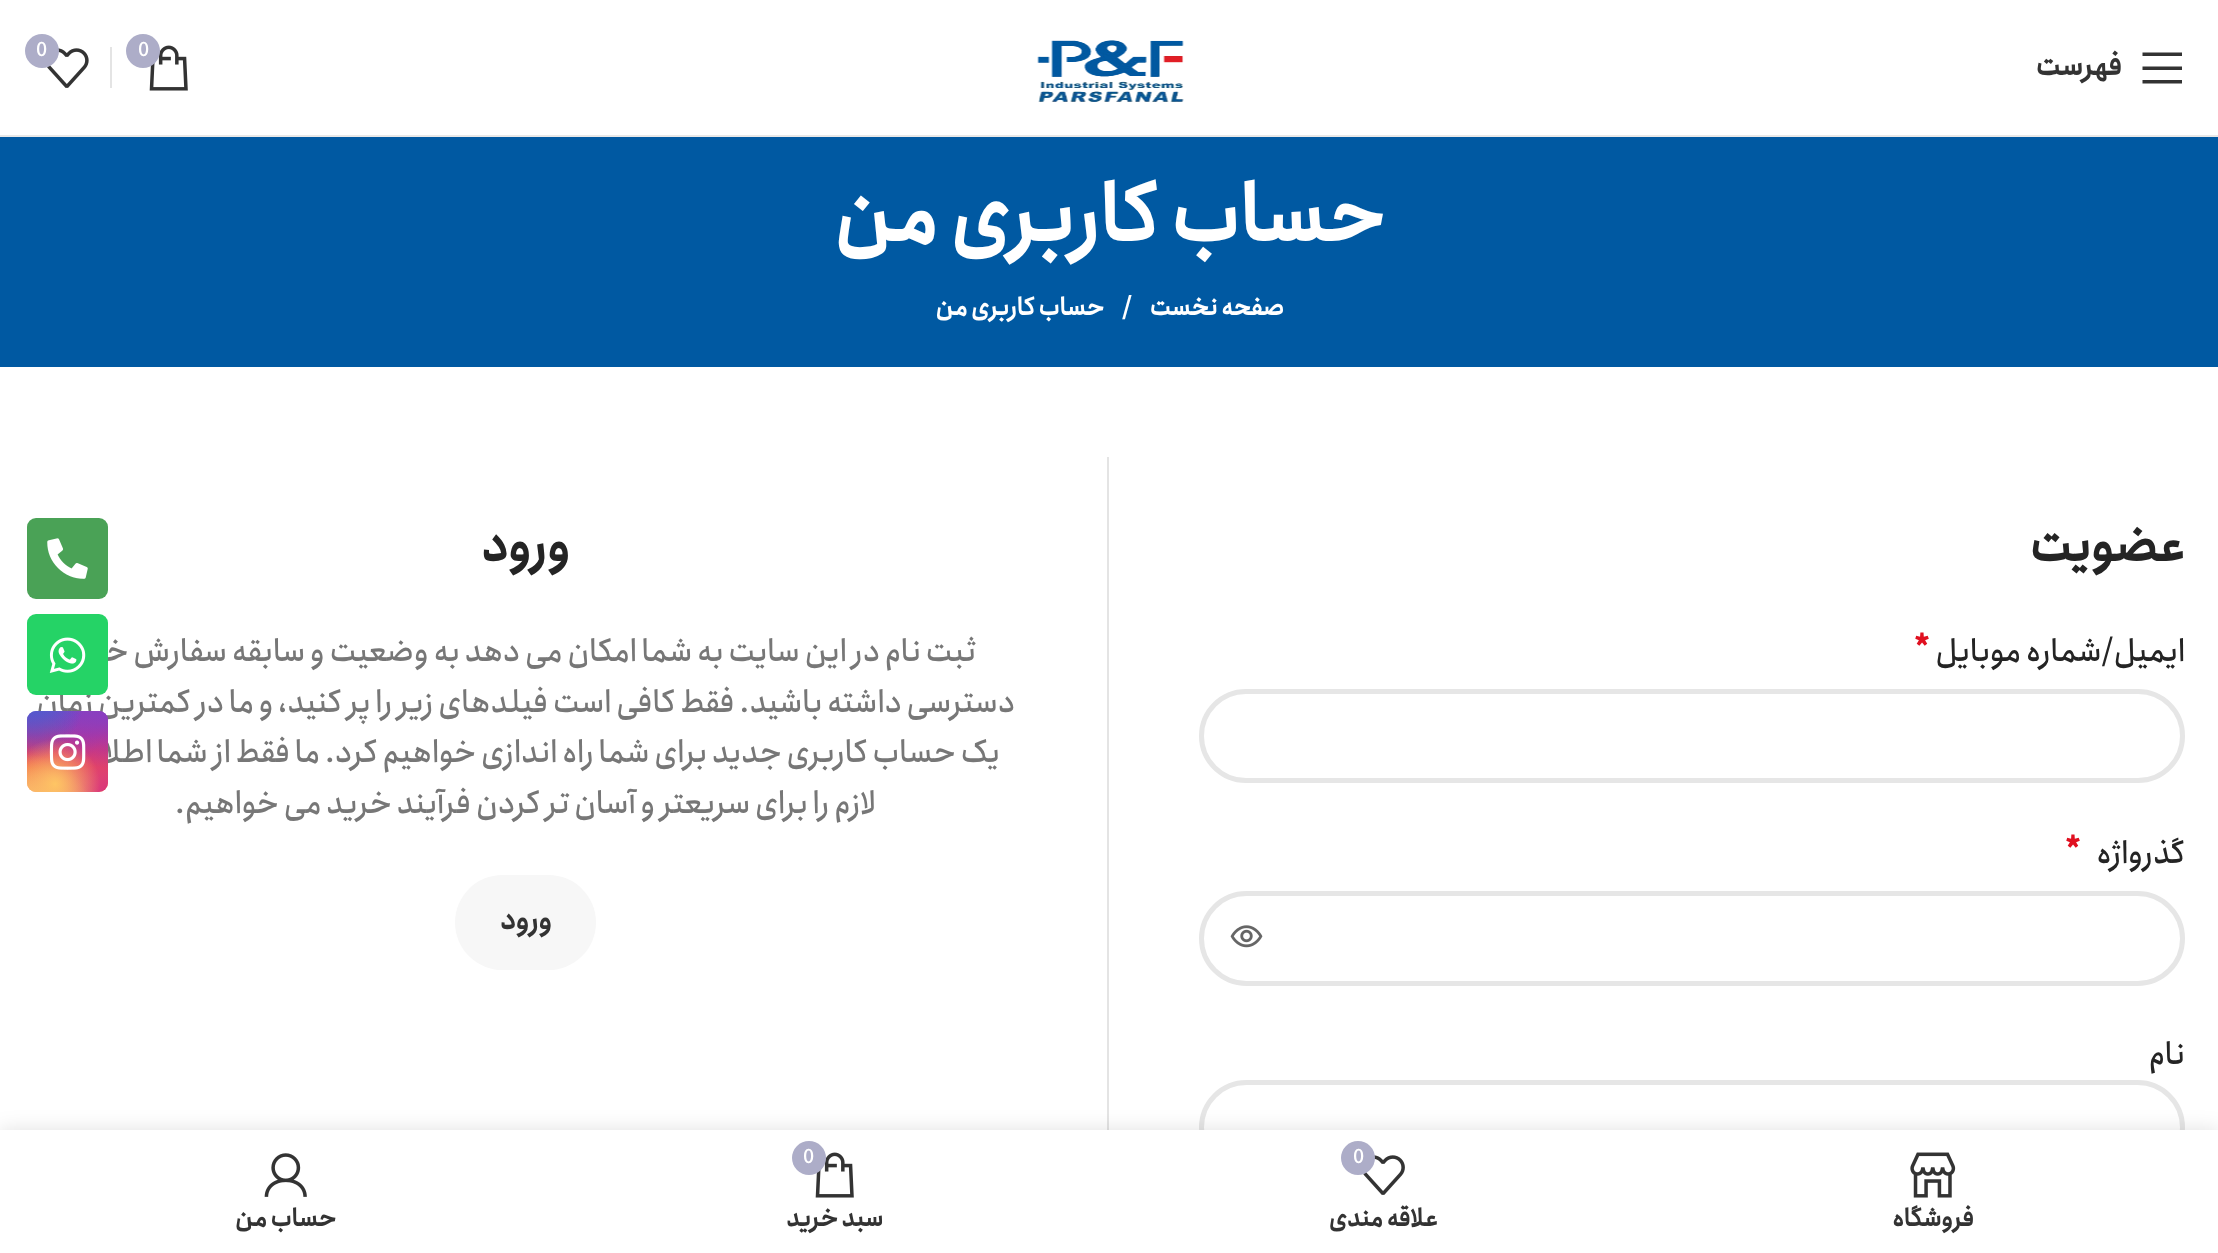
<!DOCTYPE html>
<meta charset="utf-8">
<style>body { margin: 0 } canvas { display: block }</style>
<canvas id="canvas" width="2218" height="1253"></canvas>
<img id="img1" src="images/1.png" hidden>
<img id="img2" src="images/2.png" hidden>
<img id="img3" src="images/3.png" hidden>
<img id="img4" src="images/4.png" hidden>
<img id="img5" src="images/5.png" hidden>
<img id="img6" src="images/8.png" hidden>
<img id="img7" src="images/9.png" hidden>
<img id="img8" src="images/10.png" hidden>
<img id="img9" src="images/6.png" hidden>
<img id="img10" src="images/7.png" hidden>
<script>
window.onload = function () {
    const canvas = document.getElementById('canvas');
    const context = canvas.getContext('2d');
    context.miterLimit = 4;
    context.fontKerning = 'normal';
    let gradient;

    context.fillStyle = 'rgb(255, 255, 255)';
    context.fillRect(0, 0, 2218, 1253);
    context.fillStyle = 'rgb(232, 232, 232)';
    context.fillRect(0, 135, 2218, 2);
    context.drawImage(document.getElementById('img1'), 1037, 40, 147, 62);
    context.drawImage(document.getElementById('img2'), 149, 45, 39, 46);
    context.fillStyle = 'rgb(173, 173, 200)';
    context.beginPath();
    context.arc(143, 51, 17, 0, 2 * Math.PI);
    context.fill();
    context.fillStyle = 'rgb(228, 228, 228)';
    context.fillRect(110, 47, 2, 41);
    context.drawImage(document.getElementById('img3'), 47, 48, 42, 40);
    context.fillStyle = 'rgb(173, 173, 200)';
    context.beginPath();
    context.arc(42, 51, 17, 0, 2 * Math.PI);
    context.fill();
    context.fillStyle = 'rgb(51, 51, 51)';
    context.beginPath();
    context.moveTo(2142.5, 56);
    context.lineTo(2182, 56);
    context.lineTo(2182, 52.5);
    context.lineTo(2142.5, 52.5);
    context.closePath();
    context.moveTo(2142.5, 70);
    context.lineTo(2182, 70);
    context.lineTo(2182, 66.5);
    context.lineTo(2142.5, 66.5);
    context.closePath();
    context.moveTo(2142.5, 83.5);
    context.lineTo(2182, 83.5);
    context.lineTo(2182, 80);
    context.lineTo(2142.5, 80);
    context.closePath();
    context.fill();
    context.fillStyle = 'rgb(0, 89, 162)';
    context.fillRect(0, 137, 2218, 230);
    context.beginPath();
    context.roundRect(1201.5, 691.5, 981, 89, 44.5);
    context.strokeStyle = 'rgb(230, 230, 230)';
    context.lineWidth = 5;
    context.stroke();
    context.beginPath();
    context.roundRect(1201.5, 893.5, 981, 90, 45);
    context.stroke();
    context.drawImage(document.getElementById('img4'), 1230, 925, 33, 23);
    context.beginPath();
    context.roundRect(1201.5, 1082.5, 981, 90, 45);
    context.stroke();
    context.fillStyle = 'rgb(228, 228, 228)';
    context.fillRect(1107, 457, 2, 673);
    context.fillStyle = 'rgb(247, 247, 247)';
    context.beginPath();
    context.roundRect(455, 875, 141, 95, 47.5);
    context.fill();
    context.fillStyle = 'rgb(74, 162, 86)';
    context.beginPath();
    context.roundRect(27, 518, 81, 81, 9);
    context.fill();
    context.drawImage(document.getElementById('img5'), 47, 538, 41, 41);
    context.fillStyle = 'rgba(0, 0, 0, 0.12)';
    context.filter = 'blur(10px)';
    context.beginPath();
    context.rect(0, 1130, 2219, 123);
    context.fill();
    context.filter = 'none';
    context.fillStyle = 'rgb(255, 255, 255)';
    context.fillRect(0, 1130, 2218, 123);
    context.drawImage(document.getElementById('img6'), 1910, 1152, 46, 46);
    context.drawImage(document.getElementById('img7'), 1363, 1155, 42, 40);
    context.fillStyle = 'rgb(173, 173, 200)';
    context.beginPath();
    context.arc(1358, 1158, 17, 0, 2 * Math.PI);
    context.fill();
    context.drawImage(document.getElementById('img2'), 815, 1152, 39, 46);
    context.beginPath();
    context.arc(809, 1158, 17, 0, 2 * Math.PI);
    context.fill();
    context.drawImage(document.getElementById('img8'), 264, 1153, 43, 44);
    context.font = '500 20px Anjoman';
    context.fillStyle = 'rgb(255, 255, 255)';
    context.fillText('0', 138, 56);
    context.fillText('0', 36, 56);
    context.direction = 'rtl';
    context.font = 'bold 29px Anjoman';
    context.fillStyle = 'rgb(51, 51, 51)';
    context.fillText('فهرست', 2122, 75);
    context.font = 'bold 81px Anjoman';
    context.fillStyle = 'rgb(255, 255, 255)';
    context.fillText('حساب کاربری من', 1385, 241);
    context.font = 'bold 24.75px Anjoman';
    context.fillText('صفحه نخست', 1284, 315);
    context.direction = 'ltr';
    context.fillText('/', 1122, 315);
    context.direction = 'rtl';
    context.fillText('حساب کاربری من', 1104, 315);
    context.font = 'bold 49.5px Anjoman';
    context.fillStyle = 'rgb(36, 36, 36)';
    context.fillText('عضویت', 2185, 561);
    context.font = '500 31.5px Anjoman';
    context.fillText('ایمیل/شماره موبایل', 2185, 661);
    context.direction = 'ltr';
    context.font = '500 36px Anjoman';
    context.fillStyle = 'rgb(224, 16, 32)';
    context.fillText('*', 1913, 661);
    context.direction = 'rtl';
    context.font = '500 31.5px Anjoman';
    context.fillStyle = 'rgb(36, 36, 36)';
    context.fillText('گذرواژه', 2185, 863);
    context.direction = 'ltr';
    context.font = '500 36px Anjoman';
    context.fillStyle = 'rgb(224, 16, 32)';
    context.fillText('*', 2064, 863);
    context.direction = 'rtl';
    context.font = '500 31.5px Anjoman';
    context.fillStyle = 'rgb(36, 36, 36)';
    context.fillText('نام', 2185, 1064);
    context.font = 'bold 49.5px Anjoman';
    context.fillText('ورود', 570, 561);
    context.font = '500 31.5px Anjoman';
    context.fillStyle = 'rgb(119, 119, 119)';
    context.fillText('ثبت نام در این سایت به شما امکان می دهد به وضعیت و سابقه سفارش خود', 976, 661);
    context.fillText('دسترسی داشته باشید. فقط کافی است فیلدهای زیر را پر کنید، و ما در کمترین زمان', 1015, 712);
    context.fillText('یک حساب کاربری جدید برای شما راه اندازی خواهیم کرد. ما فقط از شما اطلاعات', 1000, 762);
    context.fillText('لازم را برای سریعتر و آسان تر کردن فرآیند خرید می خواهیم.', 876, 813);
    context.font = 'bold 29px Anjoman';
    context.fillStyle = 'rgb(51, 51, 51)';
    context.fillText('ورود', 552, 929);
    context.fillStyle = 'rgb(37, 211, 102)';
    context.beginPath();
    context.roundRect(27, 614, 81, 81, 9);
    context.fill();
    context.drawImage(document.getElementById('img9'), 49, 637, 37, 36);
    gradient = context.createLinearGradient(67, 711, 68, 792);
    gradient.addColorStop(0, 'rgb(101, 89, 202)');
    gradient.addColorStop(0.3, 'rgb(188, 49, 143)');
    gradient.addColorStop(0.5, 'rgb(227, 63, 95)');
    gradient.addColorStop(0.7, 'rgb(247, 118, 56)');
    gradient.addColorStop(1, 'rgb(254, 198, 109)');
    context.fillStyle = gradient;
    context.beginPath();
    context.roundRect(27, 711, 81, 81, 9);
    context.fill();
    gradient = context.createRadialGradient(108, 792, 0, 108, 792, 115);
    gradient.addColorStop(0, 'rgb(217, 49, 122)');
    gradient.addColorStop(1, 'rgba(217, 49, 122, 0)');
    context.fillStyle = gradient;
    context.beginPath();
    context.roundRect(27, 711, 81, 81, 9);
    context.fill();
    gradient = context.createRadialGradient(76, 350.04, 0, 76, 350.04, 69);
    gradient.addColorStop(0, 'rgb(137, 61, 194)');
    gradient.addColorStop(0.5, 'rgba(137, 61, 194, 0)');
    context.fillStyle = gradient;
    context.beginPath();
    context.roundRect(27, 711, 81, 81, 9);
    context.save();
    context.clip();
    context.scale(1, 137 / 69);
    context.fillRect(0, 0, 2218, 632);
    context.restore();
    gradient = context.createRadialGradient(108, 711, 0, 108, 711, 115);
    gradient.addColorStop(0, 'rgb(137, 61, 194)');
    gradient.addColorStop(0.5, 'rgba(137, 61, 194, 0)');
    context.fillStyle = gradient;
    context.beginPath();
    context.roundRect(27, 711, 81, 81, 9);
    context.fill();
    gradient = context.createRadialGradient(43, 358.91, 0, 43, 358.91, 92);
    gradient.addColorStop(0, 'rgb(82, 88, 207)');
    gradient.addColorStop(0.5, 'rgba(82, 88, 207, 0)');
    context.fillStyle = gradient;
    context.beginPath();
    context.roundRect(27, 711, 81, 81, 9);
    context.save();
    context.clip();
    context.scale(1, 172 / 92);
    context.fillRect(0, 0, 2218, 671);
    context.restore();
    gradient = context.createRadialGradient(27, 555.7, 0, 27, 555.7, 115);
    gradient.addColorStop(0, 'rgb(82, 88, 207)');
    gradient.addColorStop(0.5, 'rgba(82, 88, 207, 0)');
    context.fillStyle = gradient;
    context.beginPath();
    context.roundRect(27, 711, 81, 81, 9);
    context.save();
    context.clip();
    context.scale(1, 143 / 115);
    context.fillRect(0, 0, 2218, 1008);
    context.restore();
    gradient = context.createRadialGradient(27, 824, 0, 27, 824, 139);
    gradient.addColorStop(0, 'rgb(254, 197, 100)');
    gradient.addColorStop(0.5, 'rgba(254, 197, 100, 0)');
    context.fillStyle = gradient;
    context.beginPath();
    context.roundRect(27, 711, 81, 81, 9);
    context.fill();
    gradient = context.createRadialGradient(55, 784, 0, 55, 784, 90);
    gradient.addColorStop(0, 'rgb(254, 197, 100)');
    gradient.addColorStop(0.5, 'rgba(254, 197, 100, 0)');
    context.fillStyle = gradient;
    context.beginPath();
    context.roundRect(27, 711, 81, 81, 9);
    context.fill();
    context.drawImage(document.getElementById('img10'), 49, 734, 37, 36);
    context.font = 'bold 24.75px Anjoman';
    context.fillStyle = 'rgb(51, 51, 51)';
    context.fillText('فروشگاه', 1974, 1226);
    context.direction = 'ltr';
    context.font = '500 20px Anjoman';
    context.fillStyle = 'rgb(255, 255, 255)';
    context.fillText('0', 1353, 1163);
    context.direction = 'rtl';
    context.font = 'bold 24.75px Anjoman';
    context.fillStyle = 'rgb(51, 51, 51)';
    context.fillText('علاقه مندی', 1438, 1226);
    context.direction = 'ltr';
    context.font = '500 20px Anjoman';
    context.fillStyle = 'rgb(255, 255, 255)';
    context.fillText('0', 803, 1163);
    context.direction = 'rtl';
    context.font = 'bold 24.75px Anjoman';
    context.fillStyle = 'rgb(51, 51, 51)';
    context.fillText('سبد خرید', 883, 1226);
    context.fillText('حساب من', 336, 1226);
};
</script>
